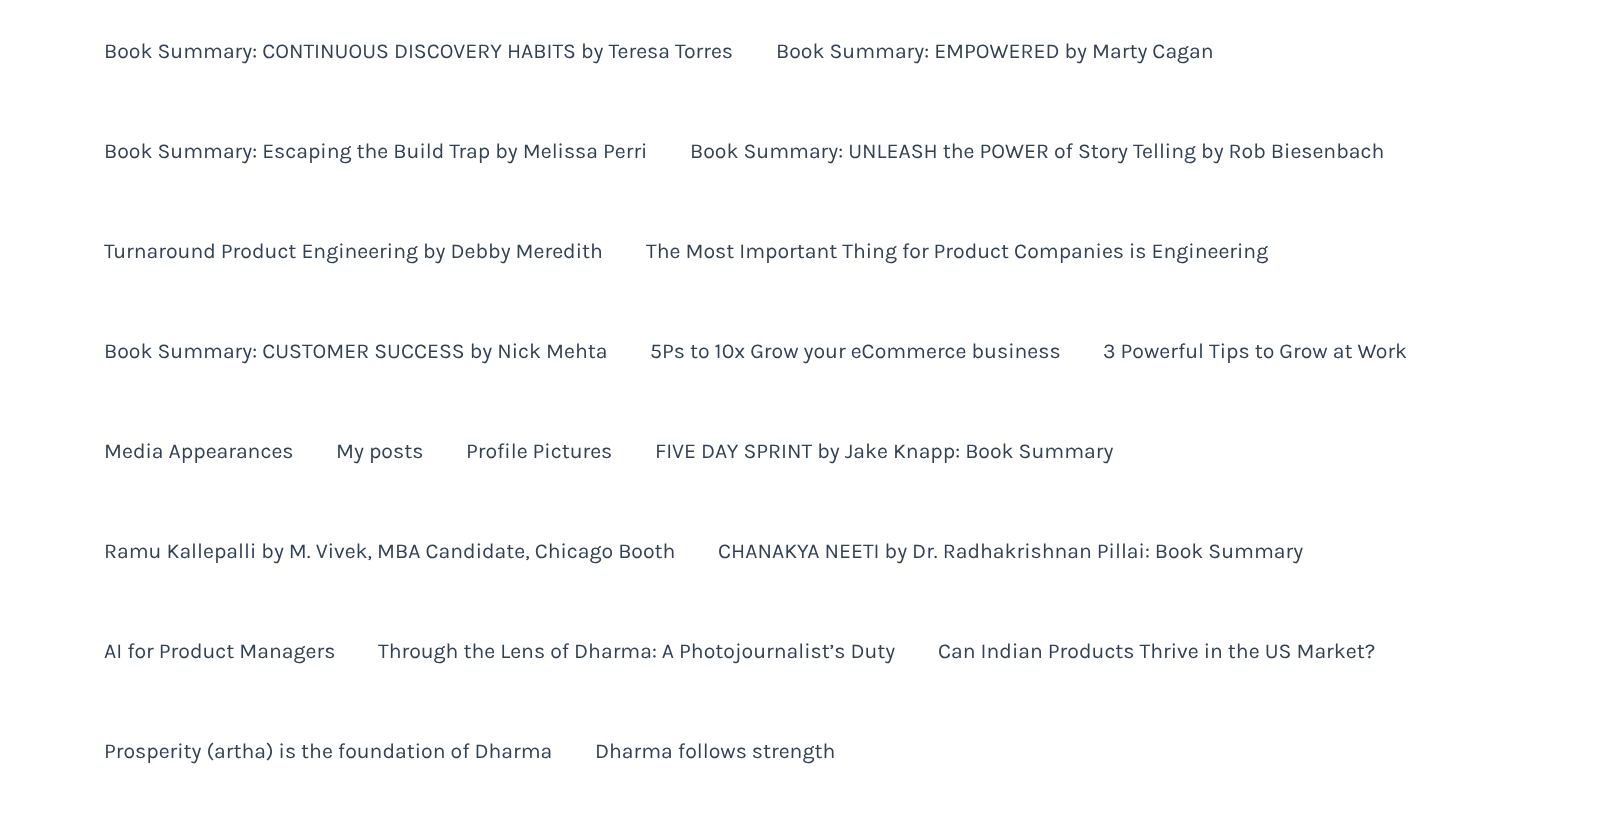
<!DOCTYPE html>
<meta charset="utf-8">
<style>body { margin: 0 } canvas { display: block }</style>
<canvas id="canvas" width="1616" height="814"></canvas>
<script>
window.onload = function () {
    const canvas = document.getElementById('canvas');
    const context = canvas.getContext('2d');
    context.miterLimit = 4;
    context.fontKerning = 'normal';

    context.fillStyle = 'rgb(255, 255, 255)';
    context.fillRect(0, 0, 1616, 814);
    context.font = '21.25px Karla';
    context.fillStyle = 'rgb(51, 65, 85)';
    context.fillText('Book Summary: CONTINUOUS DISCOVERY HABITS by Teresa Torres', 104, 58);
    context.fillText('Book Summary: EMPOWERED by Marty Cagan', 776, 58);
    context.fillText('Book Summary: Escaping the Build Trap by Melissa Perri', 104, 158);
    context.fillText('Book Summary: UNLEASH the POWER of Story Telling by Rob Biesenbach', 690, 158);
    context.fillText('Turnaround Product Engineering by Debby Meredith', 104, 258);
    context.fillText('The Most Important Thing for Product Companies is Engineering', 646, 258);
    context.fillText('Book Summary: CUSTOMER SUCCESS by Nick Mehta', 104, 358);
    context.fillText('5Ps to 10x Grow your eCommerce business', 650, 358);
    context.fillText('3 Powerful Tips to Grow at Work', 1103, 358);
    context.fillText('Media Appearances', 104, 458);
    context.fillText('My posts', 336, 458);
    context.fillText('Profile Pictures', 466, 458);
    context.fillText('FIVE DAY SPRINT by Jake Knapp: Book Summary', 655, 458);
    context.fillText('Ramu Kallepalli by M. Vivek, MBA Candidate, Chicago Booth', 104, 558);
    context.fillText('CHANAKYA NEETI by Dr. Radhakrishnan Pillai: Book Summary', 718, 558);
    context.fillText('AI for Product Managers', 104, 658);
    context.fillText('Through the Lens of Dharma: A Photojournalist’s Duty', 378, 658);
    context.fillText('Can Indian Products Thrive in the US Market?', 938, 658);
    context.fillText('Prosperity (artha) is the foundation of Dharma', 104, 758);
    context.fillText('Dharma follows strength', 595, 758);
};
</script>
